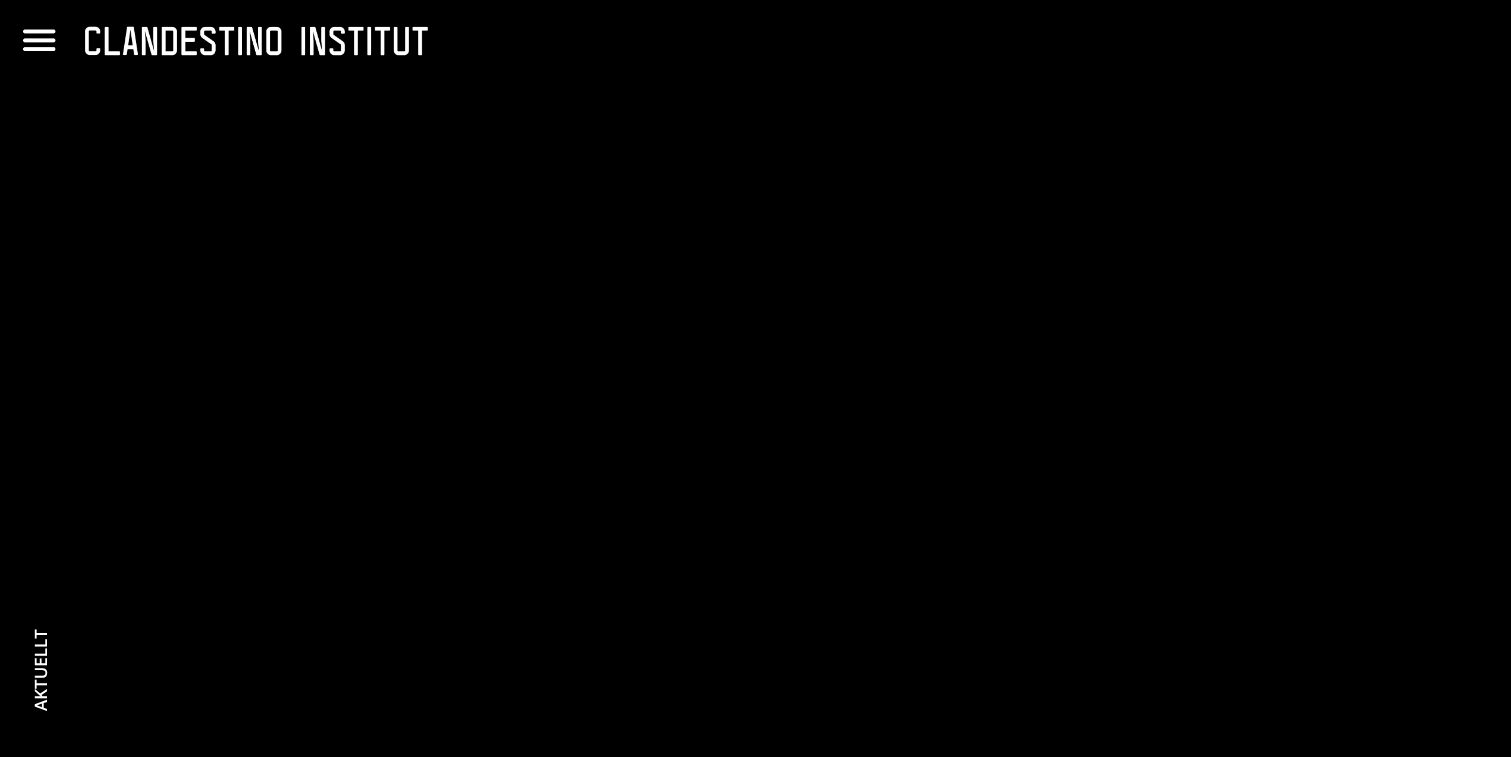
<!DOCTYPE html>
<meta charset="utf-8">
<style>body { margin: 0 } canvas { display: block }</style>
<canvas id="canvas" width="1511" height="757"></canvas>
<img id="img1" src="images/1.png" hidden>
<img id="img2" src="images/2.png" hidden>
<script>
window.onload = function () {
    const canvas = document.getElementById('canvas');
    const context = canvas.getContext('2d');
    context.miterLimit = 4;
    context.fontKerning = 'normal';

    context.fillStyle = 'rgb(0, 0, 0)';
    context.fillRect(0, 0, 1511, 757);
    context.drawImage(document.getElementById('img1'), 22, 29, 34, 22);
    context.drawImage(document.getElementById('img2'), 85, 26, 343, 30);
    context.font = '600 17px Open Sans';
    context.fillStyle = 'rgb(255, 255, 255)';
    context.save();
    context.translate(47, 711);
    context.rotate(-90 * Math.PI / 180);
    context.fillText('AKTUELLT', 0, 0);
    context.restore();
};
</script>
